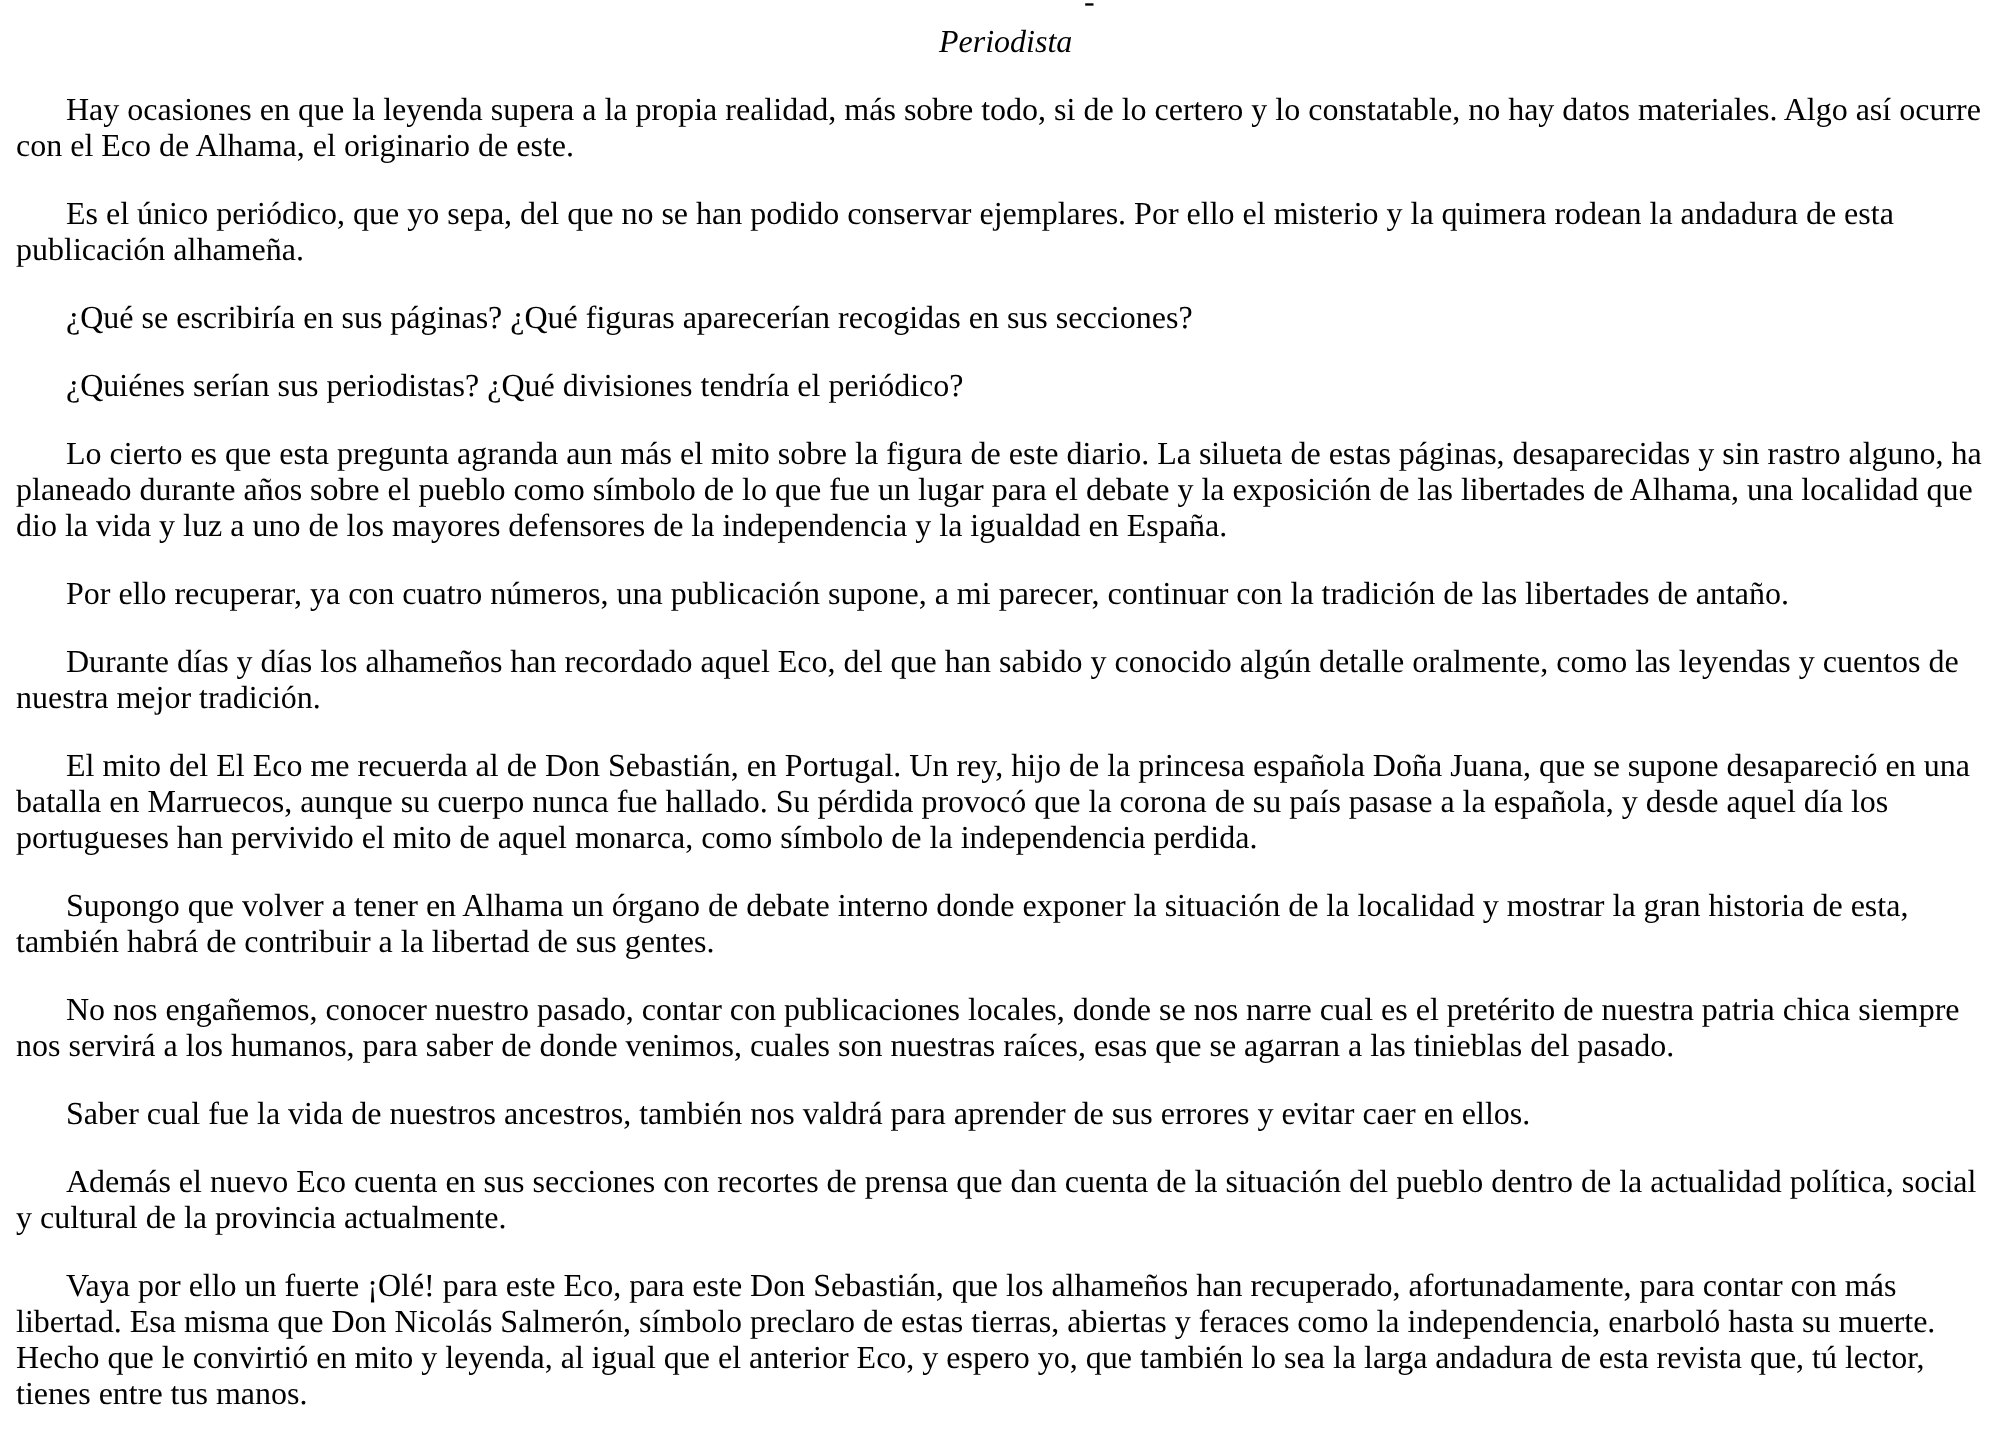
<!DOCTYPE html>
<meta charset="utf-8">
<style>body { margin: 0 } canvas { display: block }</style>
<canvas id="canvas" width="2011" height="1429"></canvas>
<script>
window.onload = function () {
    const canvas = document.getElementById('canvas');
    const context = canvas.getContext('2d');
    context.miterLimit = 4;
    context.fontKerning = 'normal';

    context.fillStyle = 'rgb(255, 255, 255)';
    context.fillRect(0, 0, 2011, 1429);
    context.font = '32px Liberation Serif';
    context.fillStyle = 'rgb(0, 0, 0)';
    context.fillText('-', 1084, 12);
    context.font = 'italic 32px Liberation Serif';
    context.fillText('Periodista', 939, 52);
    context.font = '32px Liberation Serif';
    context.fillText('Hay ocasiones en que la leyenda supera a la propia realidad, más sobre todo, si de lo certero y lo constatable, no hay datos materiales. Algo así ocurre', 66, 120);
    context.fillText('con el Eco de Alhama, el originario de este.', 16, 156);
    context.fillText('Es el único periódico, que yo sepa, del que no se han podido conservar ejemplares. Por ello el misterio y la quimera rodean la andadura de esta', 66, 224);
    context.fillText('publicación alhameña.', 16, 260);
    context.fillText('¿Qué se escribiría en sus páginas? ¿Qué figuras aparecerían recogidas en sus secciones?', 66, 328);
    context.fillText('¿Quiénes serían sus periodistas? ¿Qué divisiones tendría el periódico?', 66, 396);
    context.fillText('Lo cierto es que esta pregunta agranda aun más el mito sobre la figura de este diario. La silueta de estas páginas, desaparecidas y sin rastro alguno, ha', 66, 464);
    context.fillText('planeado durante años sobre el pueblo como símbolo de lo que fue un lugar para el debate y la exposición de las libertades de Alhama, una localidad que', 16, 500);
    context.fillText('dio la vida y luz a uno de los mayores defensores de la independencia y la igualdad en España.', 16, 536);
    context.fillText('Por ello recuperar, ya con cuatro números, una publicación supone, a mi parecer, continuar con la tradición de las libertades de antaño.', 66, 604);
    context.fillText('Durante días y días los alhameños han recordado aquel Eco, del que han sabido y conocido algún detalle oralmente, como las leyendas y cuentos de', 66, 672);
    context.fillText('nuestra mejor tradición.', 16, 708);
    context.fillText('El mito del El Eco me recuerda al de Don Sebastián, en Portugal. Un rey, hijo de la princesa española Doña Juana, que se supone desapareció en una', 66, 776);
    context.fillText('batalla en Marruecos, aunque su cuerpo nunca fue hallado. Su pérdida provocó que la corona de su país pasase a la española, y desde aquel día los', 16, 812);
    context.fillText('portugueses han pervivido el mito de aquel monarca, como símbolo de la independencia perdida.', 16, 848);
    context.fillText('Supongo que volver a tener en Alhama un órgano de debate interno donde exponer la situación de la localidad y mostrar la gran historia de esta,', 66, 916);
    context.fillText('también habrá de contribuir a la libertad de sus gentes.', 16, 952);
    context.fillText('No nos engañemos, conocer nuestro pasado, contar con publicaciones locales, donde se nos narre cual es el pretérito de nuestra patria chica siempre', 66, 1020);
    context.fillText('nos servirá a los humanos, para saber de donde venimos, cuales son nuestras raíces, esas que se agarran a las tinieblas del pasado.', 16, 1056);
    context.fillText('Saber cual fue la vida de nuestros ancestros, también nos valdrá para aprender de sus errores y evitar caer en ellos.', 66, 1124);
    context.fillText('Además el nuevo Eco cuenta en sus secciones con recortes de prensa que dan cuenta de la situación del pueblo dentro de la actualidad política, social', 66, 1192);
    context.fillText('y cultural de la provincia actualmente.', 16, 1228);
    context.fillText('Vaya por ello un fuerte ¡Olé! para este Eco, para este Don Sebastián, que los alhameños han recuperado, afortunadamente, para contar con más', 66, 1296);
    context.fillText('libertad. Esa misma que Don Nicolás Salmerón, símbolo preclaro de estas tierras, abiertas y feraces como la independencia, enarboló hasta su muerte.', 16, 1332);
    context.fillText('Hecho que le convirtió en mito y leyenda, al igual que el anterior Eco, y espero yo, que también lo sea la larga andadura de esta revista que, tú lector,', 16, 1368);
    context.fillText('tienes entre tus manos.', 16, 1404);
};
</script>
